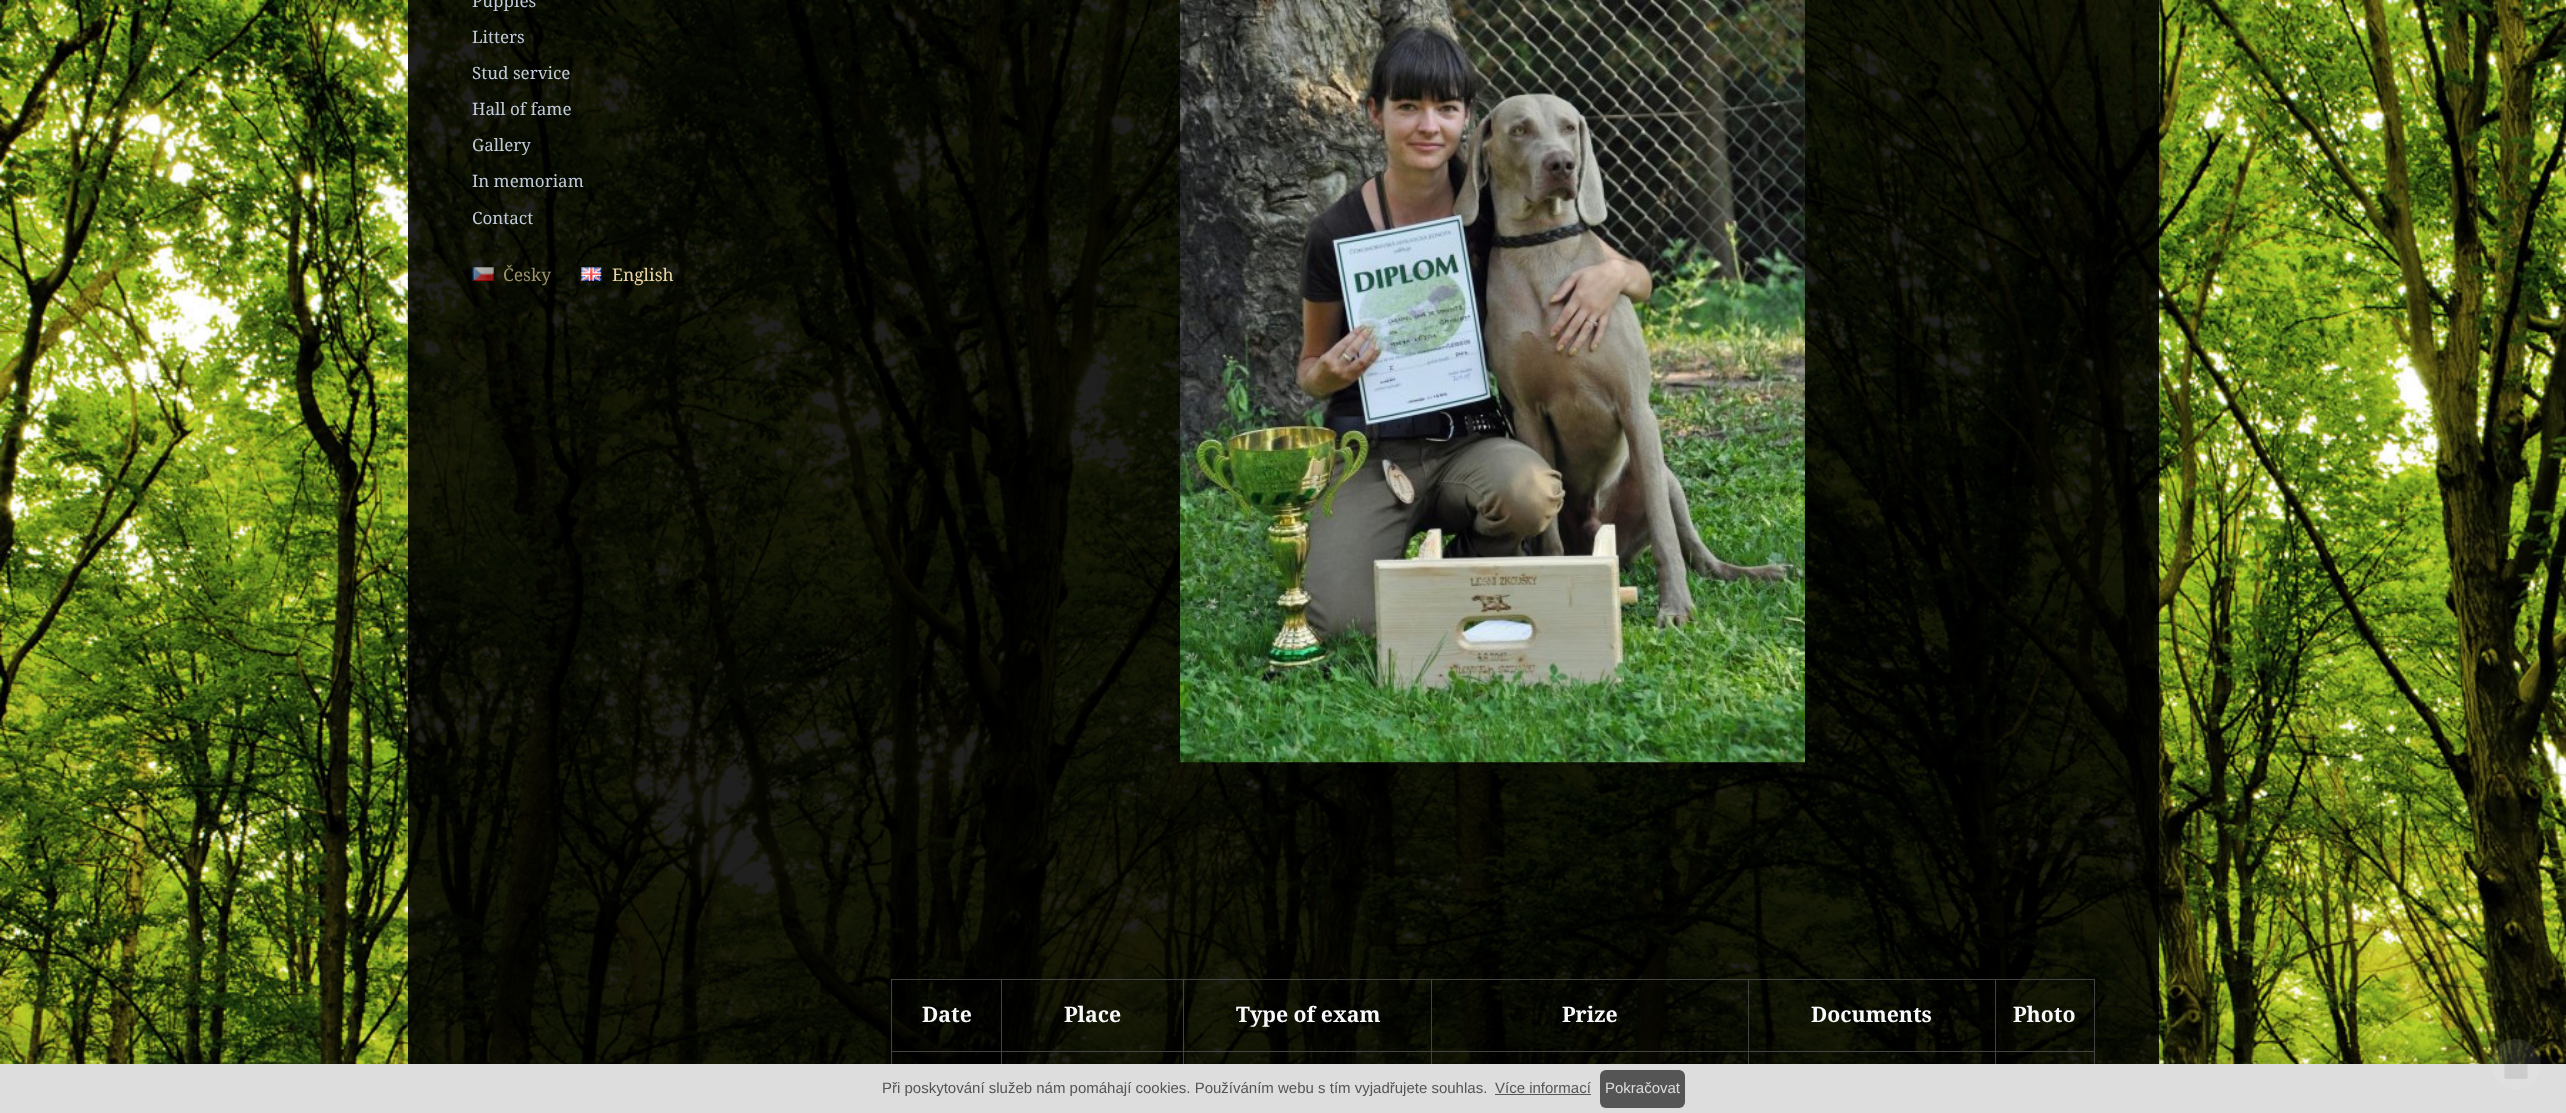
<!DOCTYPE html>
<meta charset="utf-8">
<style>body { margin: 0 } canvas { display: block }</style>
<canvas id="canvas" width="2566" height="1113"></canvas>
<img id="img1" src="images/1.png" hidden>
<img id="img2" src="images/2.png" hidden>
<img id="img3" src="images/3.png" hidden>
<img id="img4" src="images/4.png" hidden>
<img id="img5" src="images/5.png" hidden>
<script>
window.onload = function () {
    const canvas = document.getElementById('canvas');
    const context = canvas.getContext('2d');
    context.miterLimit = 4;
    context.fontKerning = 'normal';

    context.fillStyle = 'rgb(255, 255, 255)';
    context.fillRect(0, 0, 2566, 1113);
    context.drawImage(document.getElementById('img1'), 0, 0, 2566, 1064);
    context.fillStyle = 'rgba(0, 0, 0, 0.88)';
    context.fillRect(408, 0, 1751, 1064);
    context.drawImage(document.getElementById('img2'), 472, 267, 22, 14);
    context.drawImage(document.getElementById('img3'), 581, 267, 21, 14);
    context.drawImage(document.getElementById('img4'), 1180, 0, 625, 763);
    context.fillStyle = 'rgb(68, 68, 68)';
    context.fillRect(1995, 979, 100, 1);
    context.fillRect(1995, 1051, 100, 1);
    context.fillRect(1995, 1051, 1, 13);
    context.fillRect(1748, 1051, 248, 1);
    context.fillRect(1995, 979, 1, 74);
    context.fillRect(1748, 979, 248, 1);
    context.fillRect(1748, 1051, 1, 13);
    context.fillRect(1431, 1051, 318, 1);
    context.fillRect(1748, 979, 1, 74);
    context.fillRect(1431, 979, 318, 1);
    context.fillRect(1431, 1051, 1, 13);
    context.fillRect(1183, 1051, 250, 1);
    context.fillRect(1431, 979, 1, 74);
    context.fillRect(1183, 979, 250, 1);
    context.fillRect(1183, 1051, 1, 13);
    context.fillRect(1001, 1051, 183, 1);
    context.fillRect(1183, 979, 1, 74);
    context.fillRect(1001, 979, 183, 1);
    context.fillRect(1001, 1051, 1, 13);
    context.fillRect(891, 1051, 112, 1);
    context.fillRect(1001, 979, 1, 74);
    context.fillRect(891, 979, 112, 1);
    context.fillRect(891, 1051, 1, 13);
    context.fillRect(891, 979, 1, 74);
    context.fillRect(2094, 1051, 1, 13);
    context.fillRect(2094, 979, 1, 74);
    context.fillStyle = 'rgb(221, 221, 221)';
    context.fillRect(0, 1064, 2566, 49);
    context.fillStyle = 'rgb(85, 85, 85)';
    context.fillRect(1495, 1094, 96, 1);
    context.beginPath();
    context.roundRect(1600, 1070, 85, 38, 6);
    context.fill();
    context.fillStyle = 'rgba(255, 255, 255, 0.1)';
    context.beginPath();
    context.arc(2516, 1064, 25, 0, 2 * Math.PI);
    context.fill();
    context.drawImage(document.getElementById('img5'), 2504, 1049, 24, 30);
    context.font = '17px Noto Serif';
    context.fillStyle = 'rgb(192, 204, 218)';
    context.fillText('Puppies', 472, 7);
    context.fillText('Litters', 472, 43);
    context.fillText('Stud service', 472, 79);
    context.fillText('Hall of fame', 472, 115);
    context.fillText('Gallery', 472, 151);
    context.fillText('In memoriam', 472, 187);
    context.fillText('Contact', 472, 224);
    context.font = '17.5px Noto Serif';
    context.fillStyle = 'rgb(158, 146, 110)';
    context.fillText('Česky', 503, 281);
    context.fillStyle = 'rgb(234, 214, 165)';
    context.fillText('English', 612, 281);
    context.font = 'bold 21.25px Noto Serif';
    context.fillStyle = 'rgb(249, 250, 252)';
    context.fillText('Date', 922, 1022);
    context.fillText('Place', 1064, 1022);
    context.fillText('Type of exam', 1236, 1022);
    context.fillText('Prize', 1562, 1022);
    context.fillText('Documents', 1811, 1022);
    context.fillText('Photo', 2013, 1022);
    context.font = '15px Liberation Sans';
    context.fillStyle = 'rgb(85, 85, 85)';
    context.fillText('Při poskytování služeb nám pomáhají cookies. Používáním webu s tím vyjadřujete souhlas.', 882, 1093);
    context.fillText('Více informací', 1495, 1093);
    context.fillStyle = 'rgb(221, 221, 221)';
    context.fillText('Pokračovat', 1605, 1093);
};
</script>
